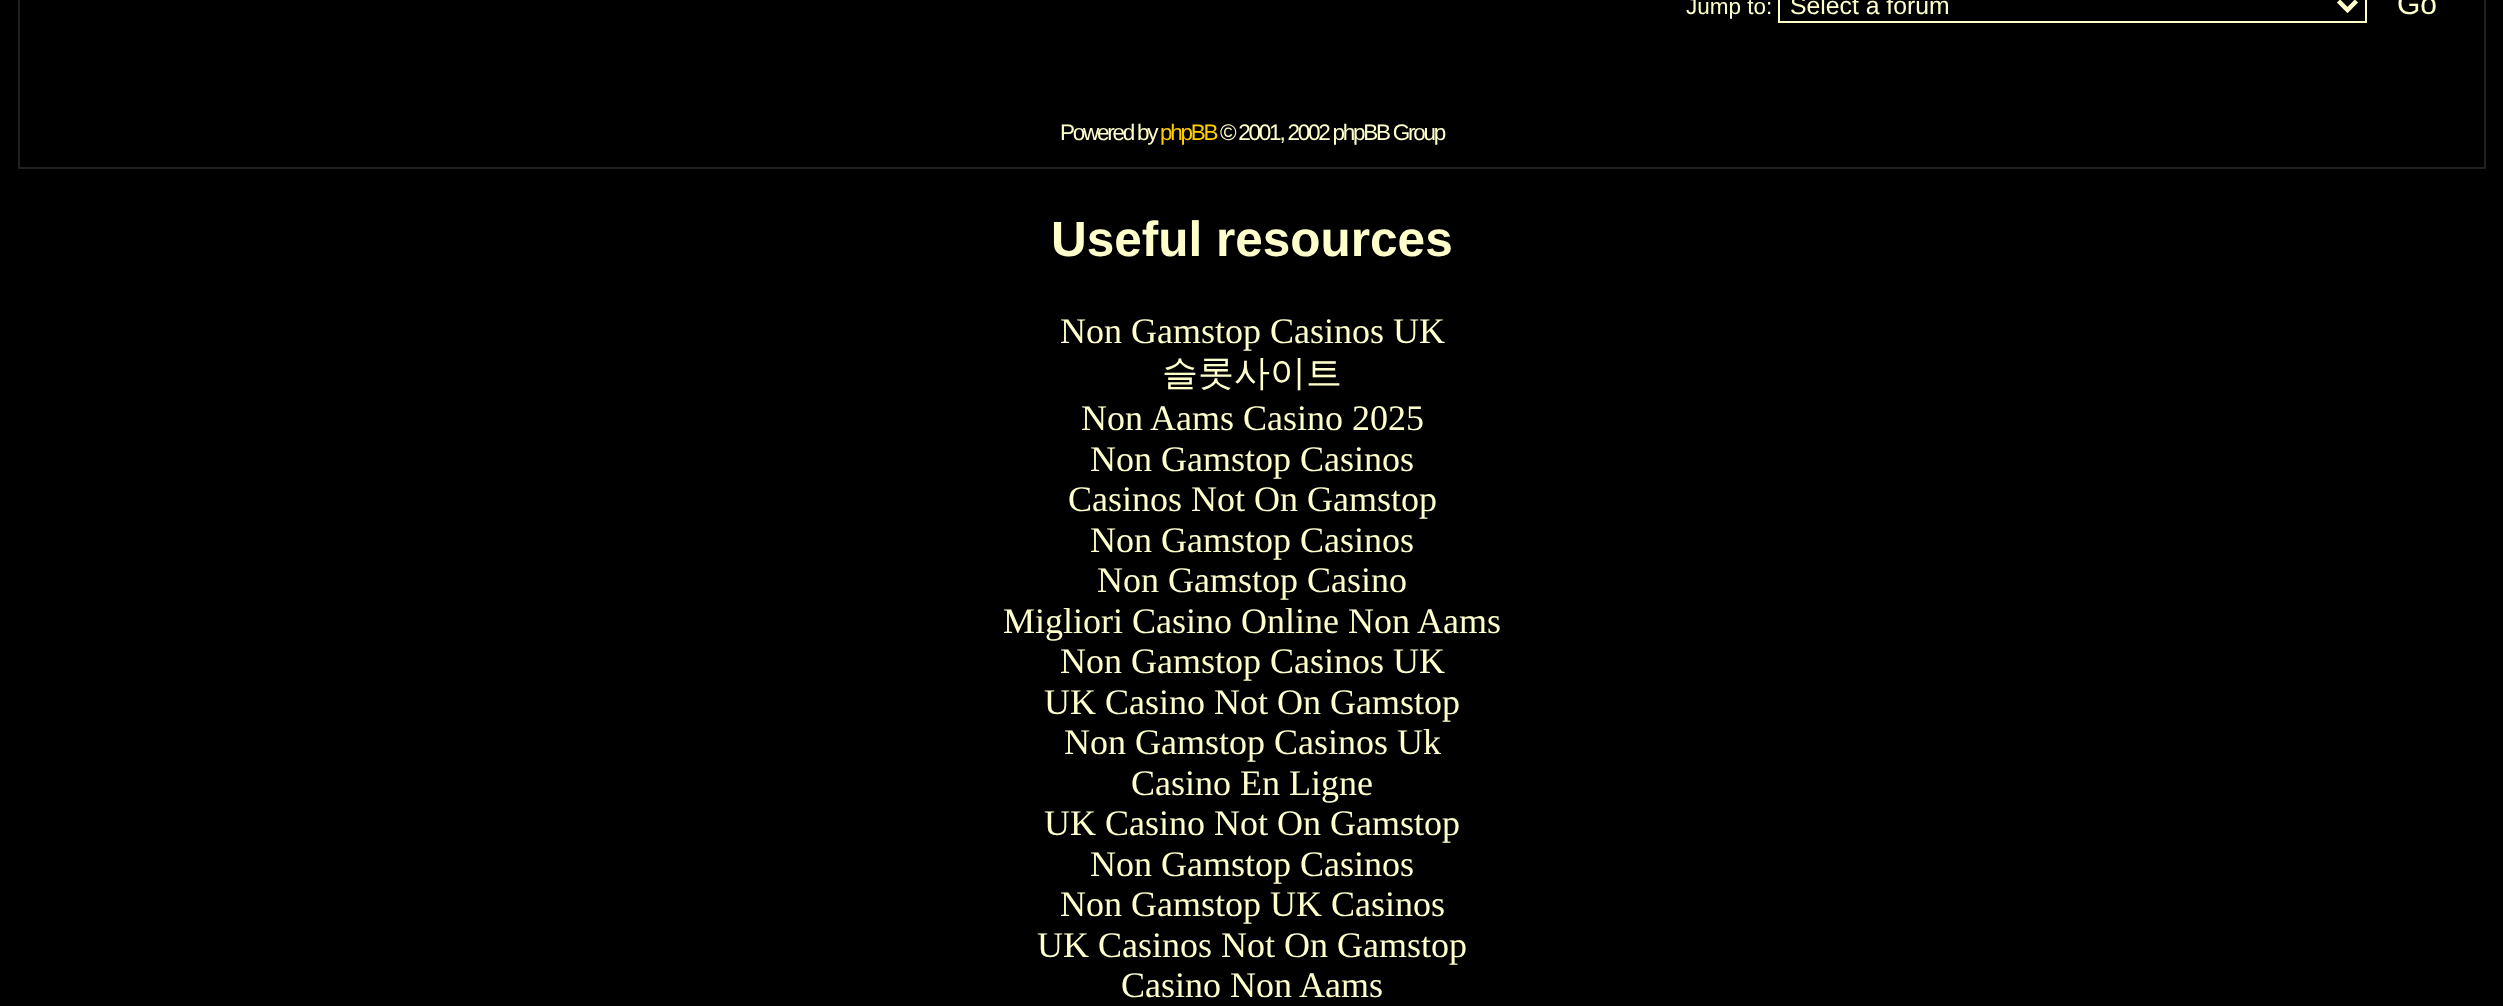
<!DOCTYPE html>
<meta charset="utf-8">
<style>body { margin: 0 } canvas { display: block }</style>
<canvas id="canvas" width="2503" height="1006"></canvas>
<script>
window.onload = function () {
    const canvas = document.getElementById('canvas');
    const context = canvas.getContext('2d');
    context.miterLimit = 4;
    context.fontKerning = 'normal';

    context.fillStyle = 'rgb(0, 0, 0)';
    context.fillRect(0, 0, 2503, 1006);
    context.strokeStyle = 'rgb(33, 33, 33)';
    context.lineWidth = 2;
    context.strokeRect(19, -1, 2466, 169);
    context.strokeStyle = 'rgb(255, 255, 204)';
    context.strokeRect(1779, -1, 587, 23);
    context.beginPath();
    context.moveTo(2338.5, 1);
    context.lineTo(2347.5, 10);
    context.lineTo(2356.5, 1);
    context.lineWidth = 4.5;
    context.stroke();
    context.font = '22.5px Liberation Sans';
    context.fillStyle = 'rgb(255, 255, 204)';
    context.fillText('Jump to:', 1686, 14);
    context.font = '24.75px Liberation Sans';
    context.fillText('Select a forum', 1790, 14);
    context.font = '30px Liberation Sans';
    context.fillText('Go', 2397, 14);
    context.letterSpacing = '-2.25px';
    context.font = '22.5px Liberation Sans';
    context.fillText('Powered by', 1060, 140);
    context.fillStyle = 'rgb(255, 204, 0)';
    context.fillText('phpBB', 1160, 140);
    context.fillStyle = 'rgb(255, 255, 204)';
    context.fillText('© 2001, 2002 phpBB Group', 1220, 140);
    context.letterSpacing = '0px';
    context.font = 'bold 49.5px Liberation Sans';
    context.fillText('Useful resources', 1051, 256);
    context.font = '36px Liberation Serif';
    context.fillText('Non Gamstop Casinos UK', 1060, 343);
    context.font = '500 36px WenQuanYi Zen Hei';
    context.fillText('슬롯사이트', 1162, 385);
    context.font = '36px Liberation Serif';
    context.fillText('Non Aams Casino 2025', 1081, 430);
    context.fillText('Non Gamstop Casinos', 1090, 471);
    context.fillText('Casinos Not On Gamstop', 1068, 511);
    context.fillText('Non Gamstop Casinos', 1090, 552);
    context.fillText('Non Gamstop Casino', 1097, 592);
    context.fillText('Migliori Casino Online Non Aams', 1003, 633);
    context.fillText('Non Gamstop Casinos UK', 1060, 673);
    context.fillText('UK Casino Not On Gamstop', 1044, 714);
    context.fillText('Non Gamstop Casinos Uk', 1064, 754);
    context.fillText('Casino En Ligne', 1131, 795);
    context.fillText('UK Casino Not On Gamstop', 1044, 835);
    context.fillText('Non Gamstop Casinos', 1090, 876);
    context.fillText('Non Gamstop UK Casinos', 1060, 916);
    context.fillText('UK Casinos Not On Gamstop', 1037, 957);
    context.fillText('Casino Non Aams', 1121, 997);
};
</script>
